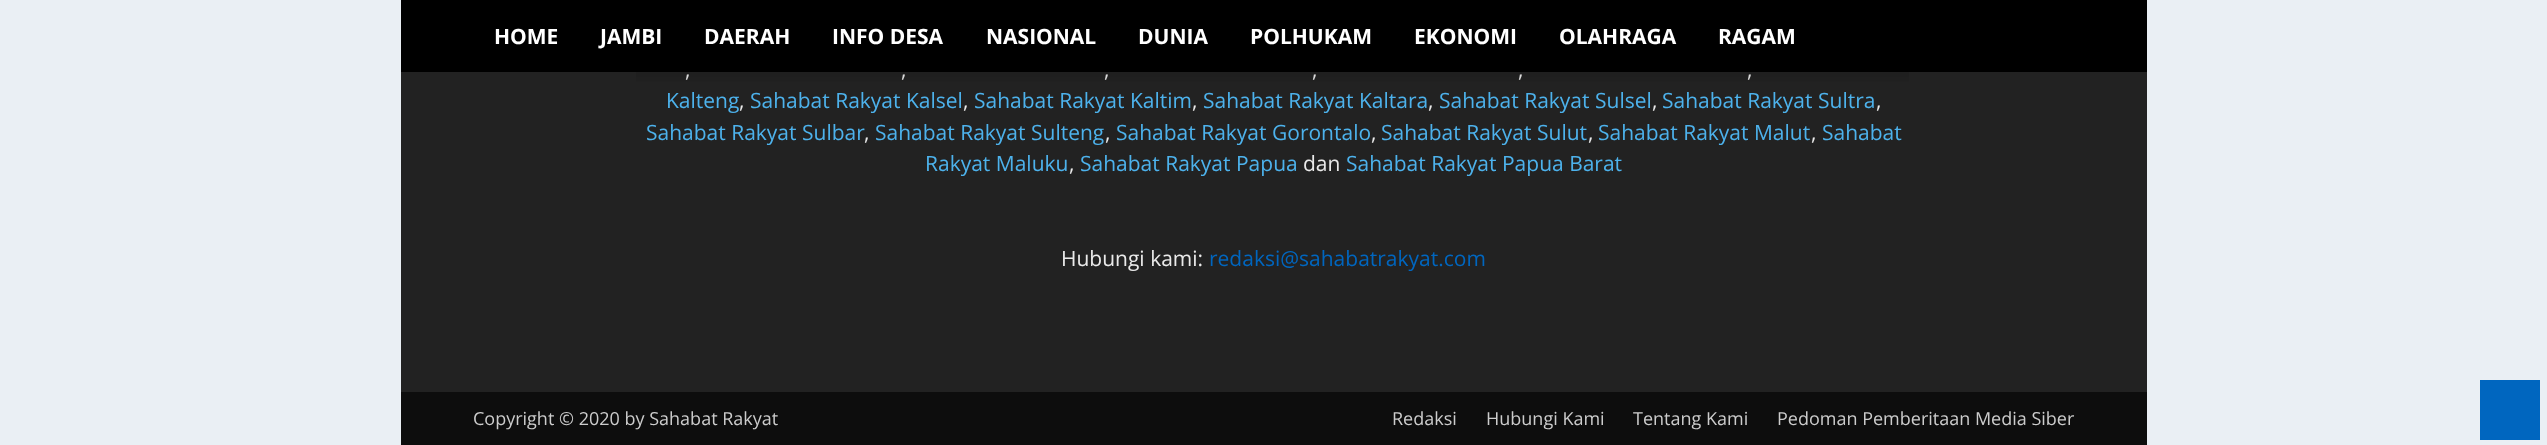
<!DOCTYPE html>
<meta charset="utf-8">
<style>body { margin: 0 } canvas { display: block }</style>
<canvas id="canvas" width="2547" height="445"></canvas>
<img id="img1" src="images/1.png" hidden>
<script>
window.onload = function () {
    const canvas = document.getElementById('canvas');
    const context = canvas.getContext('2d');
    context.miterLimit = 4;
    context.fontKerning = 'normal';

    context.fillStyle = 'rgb(234, 239, 244)';
    context.fillRect(0, 0, 2547, 445);
    context.fillStyle = 'rgb(0, 0, 0)';
    context.fillRect(401, 0, 1746, 72);
    context.fillStyle = 'rgb(34, 34, 34)';
    context.fillRect(401, 72, 1746, 320);
    context.fillStyle = 'rgb(13, 13, 13)';
    context.fillRect(401, 392, 1746, 53);
    context.fillStyle = 'rgb(0, 102, 191)';
    context.fillRect(2480, 380, 60, 60);
    context.font = 'bold 21px Open Sans';
    context.fillStyle = 'rgb(255, 255, 255)';
    context.fillText('HOME', 494, 44);
    context.fillText('JAMBI', 600, 44);
    context.fillText('DAERAH', 704, 44);
    context.fillText('INFO DESA', 832, 44);
    context.fillText('NASIONAL', 986, 44);
    context.fillText('DUNIA', 1138, 44);
    context.fillText('POLHUKAM', 1250, 44);
    context.fillText('EKONOMI', 1414, 44);
    context.fillText('OLAHRAGA', 1559, 44);
    context.fillText('RAGAM', 1718, 44);
    context.font = '21px Open Sans';
    context.fillStyle = 'rgb(234, 234, 234)';
    context.fillText(',', 685, 77);
    context.fillText(',', 901, 77);
    context.fillText(',', 1104, 77);
    context.fillText(',', 1312, 77);
    context.fillText(',', 1518, 77);
    context.fillText(',', 1747, 77);
    context.drawImage(document.getElementById('img1'), 636, 72, 1273, 10);
    context.fillStyle = 'rgb(77, 178, 236)';
    context.fillText('Kalteng', 666, 108);
    context.fillStyle = 'rgb(234, 234, 234)';
    context.fillText(',', 739, 108);
    context.fillStyle = 'rgb(77, 178, 236)';
    context.fillText('Sahabat Rakyat Kalsel', 750, 108);
    context.fillStyle = 'rgb(234, 234, 234)';
    context.fillText(',', 963, 108);
    context.fillStyle = 'rgb(77, 178, 236)';
    context.fillText('Sahabat Rakyat Kaltim', 974, 108);
    context.fillStyle = 'rgb(234, 234, 234)';
    context.fillText(',', 1192, 108);
    context.fillStyle = 'rgb(77, 178, 236)';
    context.fillText('Sahabat Rakyat Kaltara', 1203, 108);
    context.fillStyle = 'rgb(234, 234, 234)';
    context.fillText(',', 1428, 108);
    context.fillStyle = 'rgb(77, 178, 236)';
    context.fillText('Sahabat Rakyat Sulsel', 1439, 108);
    context.fillStyle = 'rgb(234, 234, 234)';
    context.fillText(',', 1652, 108);
    context.fillStyle = 'rgb(77, 178, 236)';
    context.fillText('Sahabat Rakyat Sultra', 1662, 108);
    context.fillStyle = 'rgb(234, 234, 234)';
    context.fillText(',', 1876, 108);
    context.fillStyle = 'rgb(77, 178, 236)';
    context.fillText('Sahabat Rakyat Sulbar', 646, 140);
    context.fillStyle = 'rgb(234, 234, 234)';
    context.fillText(',', 864, 140);
    context.fillStyle = 'rgb(77, 178, 236)';
    context.fillText('Sahabat Rakyat Sulteng', 875, 140);
    context.fillStyle = 'rgb(234, 234, 234)';
    context.fillText(',', 1105, 140);
    context.fillStyle = 'rgb(77, 178, 236)';
    context.fillText('Sahabat Rakyat Gorontalo', 1116, 140);
    context.fillStyle = 'rgb(234, 234, 234)';
    context.fillText(',', 1371, 140);
    context.fillStyle = 'rgb(77, 178, 236)';
    context.fillText('Sahabat Rakyat Sulut', 1381, 140);
    context.fillStyle = 'rgb(234, 234, 234)';
    context.fillText(',', 1588, 140);
    context.fillStyle = 'rgb(77, 178, 236)';
    context.fillText('Sahabat Rakyat Malut', 1598, 140);
    context.fillStyle = 'rgb(234, 234, 234)';
    context.fillText(',', 1811, 140);
    context.fillStyle = 'rgb(77, 178, 236)';
    context.fillText('Sahabat', 1822, 140);
    context.fillText('Rakyat Maluku', 925, 171);
    context.fillStyle = 'rgb(234, 234, 234)';
    context.fillText(',', 1069, 171);
    context.fillStyle = 'rgb(77, 178, 236)';
    context.fillText('Sahabat Rakyat Papua', 1080, 171);
    context.fillStyle = 'rgb(234, 234, 234)';
    context.fillText('dan', 1303, 171);
    context.fillStyle = 'rgb(77, 178, 236)';
    context.fillText('Sahabat Rakyat Papua Barat', 1346, 171);
    context.fillStyle = 'rgb(234, 234, 234)';
    context.fillText('Hubungi kami:', 1061, 266);
    context.fillStyle = 'rgb(0, 102, 191)';
    context.fillText('redaksi@sahabatrakyat.com', 1209, 266);
    context.font = '18px Open Sans';
    context.fillStyle = 'rgb(204, 204, 204)';
    context.fillText('Copyright © 2020 by Sahabat Rakyat', 473, 425);
    context.fillText('Redaksi', 1392, 425);
    context.fillText('Hubungi Kami', 1486, 425);
    context.fillText('Tentang Kami', 1633, 425);
    context.fillText('Pedoman Pemberitaan Media Siber', 1777, 425);
};
</script>
